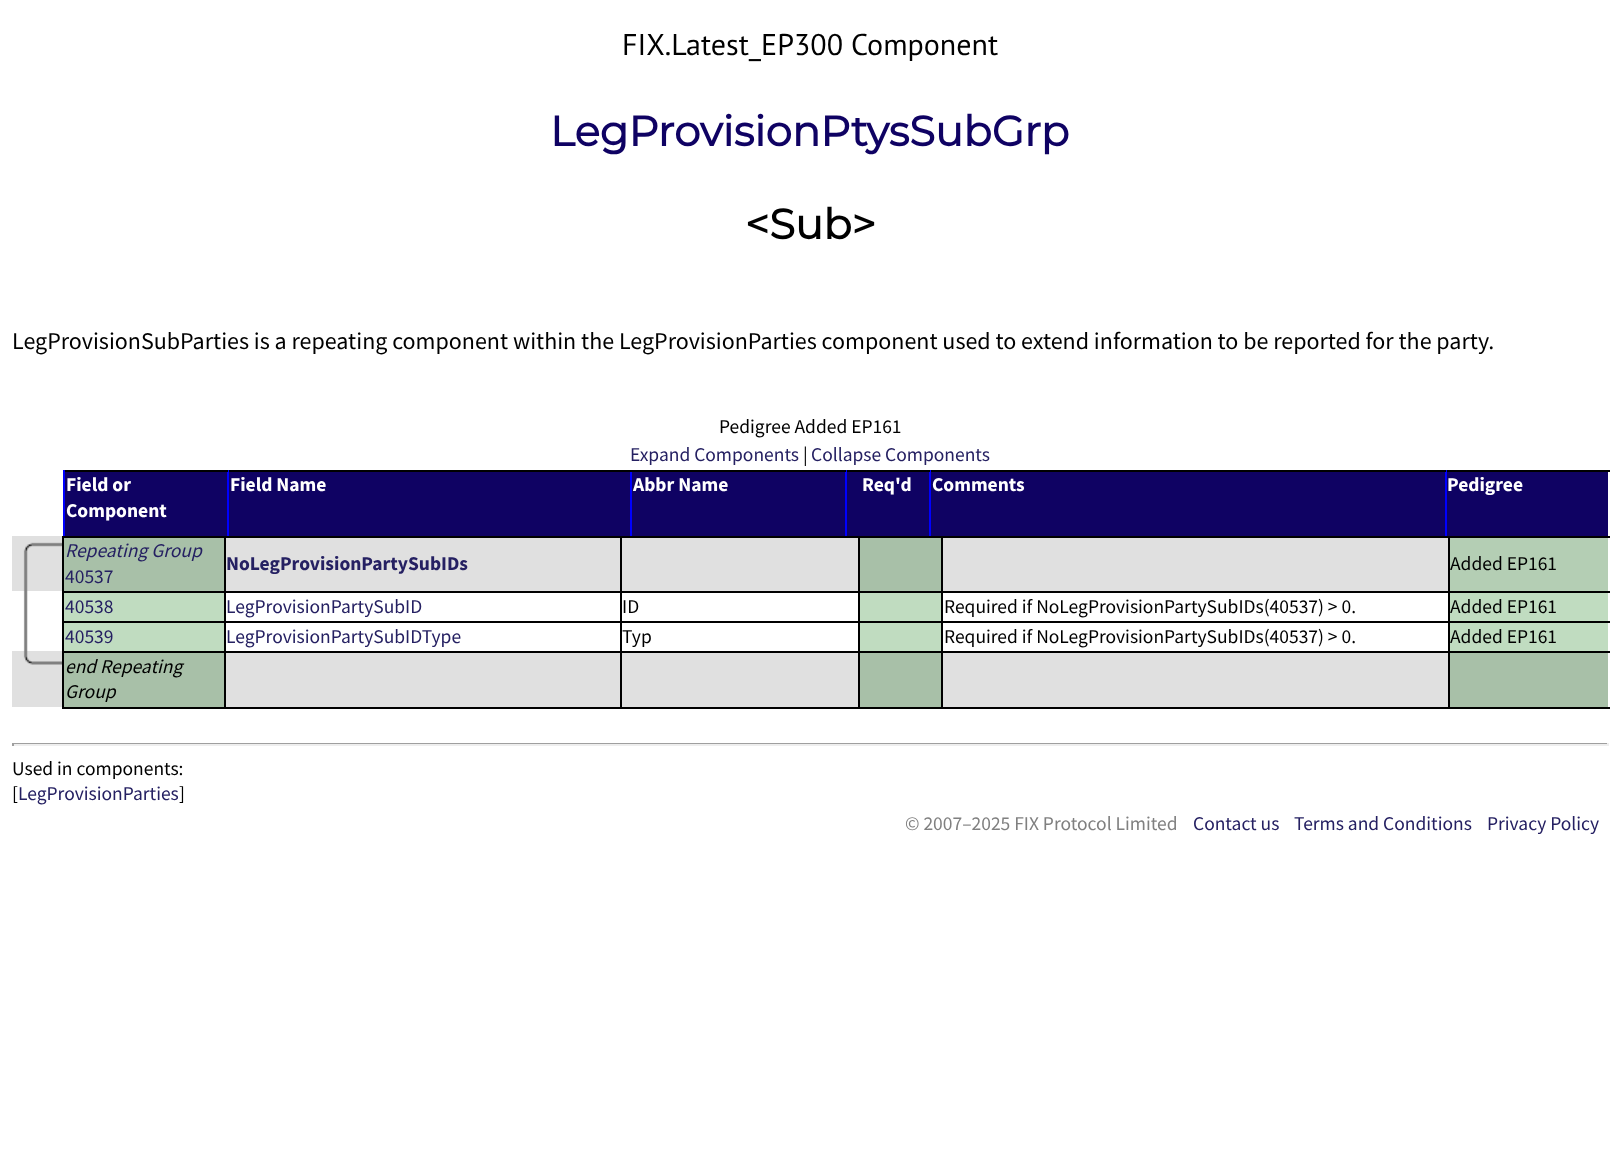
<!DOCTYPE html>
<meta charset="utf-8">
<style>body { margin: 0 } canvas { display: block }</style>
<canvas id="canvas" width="1619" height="1154"></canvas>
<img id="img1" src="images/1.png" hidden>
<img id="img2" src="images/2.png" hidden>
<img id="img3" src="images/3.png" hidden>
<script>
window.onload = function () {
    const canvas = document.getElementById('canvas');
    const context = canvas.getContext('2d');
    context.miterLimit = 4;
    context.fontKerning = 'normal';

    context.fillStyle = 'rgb(255, 255, 255)';
    context.fillRect(0, 0, 1619, 1154);
    context.fillStyle = 'rgb(15, 2, 99)';
    context.fillRect(65, 472, 162, 64);
    context.fillStyle = 'rgb(0, 0, 0)';
    context.fillRect(1445, 470, 165, 2);
    context.fillStyle = 'rgb(0, 0, 255)';
    context.fillRect(1445, 470, 2, 67);
    context.fillStyle = 'rgb(0, 0, 0)';
    context.fillRect(929, 470, 517, 2);
    context.fillStyle = 'rgb(0, 0, 255)';
    context.fillRect(929, 470, 2, 67);
    context.fillStyle = 'rgb(0, 0, 0)';
    context.fillRect(845, 470, 85, 2);
    context.fillStyle = 'rgb(0, 0, 255)';
    context.fillRect(845, 470, 2, 67);
    context.fillStyle = 'rgb(0, 0, 0)';
    context.fillRect(630, 470, 216, 2);
    context.fillStyle = 'rgb(0, 0, 255)';
    context.fillRect(630, 470, 2, 67);
    context.fillStyle = 'rgb(0, 0, 0)';
    context.fillRect(227, 470, 405, 2);
    context.fillStyle = 'rgb(0, 0, 255)';
    context.fillRect(227, 470, 2, 67);
    context.fillStyle = 'rgb(0, 0, 0)';
    context.fillRect(63, 470, 165, 2);
    context.fillStyle = 'rgb(0, 0, 255)';
    context.fillRect(63, 470, 2, 67);
    context.fillStyle = 'rgb(15, 2, 99)';
    context.fillRect(229, 472, 401, 64);
    context.fillRect(632, 472, 213, 64);
    context.fillRect(847, 472, 82, 64);
    context.fillRect(931, 472, 514, 64);
    context.fillRect(1447, 472, 161, 64);
    context.fillStyle = 'rgb(224, 224, 224)';
    context.fillRect(12, 536, 50, 55);
    context.drawImage(document.getElementById('img1'), 23, 542, 39, 49);
    context.fillStyle = 'rgb(168, 192, 168)';
    context.fillRect(64, 538, 160, 53);
    context.fillStyle = 'rgb(0, 0, 0)';
    context.fillRect(1448, 536, 162, 2);
    context.fillRect(1448, 536, 2, 57);
    context.fillRect(941, 536, 508, 2);
    context.fillRect(941, 536, 2, 57);
    context.fillRect(858, 536, 84, 2);
    context.fillRect(858, 536, 2, 57);
    context.fillRect(620, 536, 240, 2);
    context.fillRect(620, 591, 240, 2);
    context.fillRect(620, 536, 2, 57);
    context.fillRect(224, 536, 397, 2);
    context.fillRect(224, 591, 397, 2);
    context.fillRect(224, 536, 2, 57);
    context.fillRect(62, 536, 163, 2);
    context.fillRect(62, 536, 2, 57);
    context.fillStyle = 'rgb(224, 224, 224)';
    context.fillRect(226, 538, 394, 53);
    context.fillRect(622, 538, 236, 53);
    context.fillStyle = 'rgb(168, 192, 168)';
    context.fillRect(860, 538, 81, 53);
    context.fillStyle = 'rgb(224, 224, 224)';
    context.fillRect(943, 538, 505, 53);
    context.fillStyle = 'rgb(180, 206, 180)';
    context.fillRect(1450, 538, 158, 53);
    context.drawImage(document.getElementById('img2'), 23, 591, 5, 30);
    context.fillStyle = 'rgb(192, 220, 192)';
    context.fillRect(64, 593, 160, 28);
    context.fillStyle = 'rgb(0, 0, 0)';
    context.fillRect(1448, 621, 162, 2);
    context.fillRect(1448, 621, 2, 32);
    context.fillRect(941, 621, 508, 2);
    context.fillRect(941, 621, 2, 32);
    context.fillRect(858, 621, 84, 2);
    context.fillRect(858, 621, 2, 32);
    context.fillRect(620, 621, 240, 2);
    context.fillRect(620, 621, 2, 32);
    context.fillRect(224, 621, 397, 2);
    context.fillRect(224, 621, 2, 32);
    context.fillRect(62, 621, 163, 2);
    context.fillRect(224, 591, 2, 32);
    context.fillRect(62, 591, 163, 2);
    context.fillRect(62, 621, 2, 32);
    context.fillRect(62, 591, 2, 32);
    context.fillRect(620, 591, 2, 32);
    context.fillStyle = 'rgb(192, 220, 192)';
    context.fillRect(860, 593, 81, 28);
    context.fillStyle = 'rgb(0, 0, 0)';
    context.fillRect(1448, 591, 162, 2);
    context.fillRect(1448, 591, 2, 32);
    context.fillRect(941, 591, 508, 2);
    context.fillRect(941, 591, 2, 32);
    context.fillRect(858, 591, 84, 2);
    context.fillRect(858, 591, 2, 32);
    context.fillStyle = 'rgb(192, 220, 192)';
    context.fillRect(1450, 593, 158, 28);
    context.drawImage(document.getElementById('img2'), 23, 621, 5, 30);
    context.fillRect(64, 623, 160, 28);
    context.fillRect(860, 623, 81, 28);
    context.fillRect(1450, 623, 158, 28);
    context.fillStyle = 'rgb(224, 224, 224)';
    context.fillRect(12, 651, 50, 56);
    context.drawImage(document.getElementById('img3'), 23, 651, 39, 14);
    context.fillStyle = 'rgb(168, 192, 168)';
    context.fillRect(64, 653, 160, 54);
    context.fillStyle = 'rgb(0, 0, 0)';
    context.fillRect(1448, 651, 162, 2);
    context.fillRect(1448, 707, 162, 2);
    context.fillRect(1448, 651, 2, 57);
    context.fillRect(941, 651, 508, 2);
    context.fillRect(941, 707, 508, 2);
    context.fillRect(941, 651, 2, 57);
    context.fillRect(858, 651, 84, 2);
    context.fillRect(858, 707, 84, 2);
    context.fillRect(858, 651, 2, 57);
    context.fillRect(620, 651, 240, 2);
    context.fillRect(620, 707, 240, 2);
    context.fillRect(620, 651, 2, 57);
    context.fillRect(224, 651, 397, 2);
    context.fillRect(224, 707, 397, 2);
    context.fillRect(224, 651, 2, 57);
    context.fillRect(62, 651, 163, 2);
    context.fillRect(62, 707, 163, 2);
    context.fillRect(62, 651, 2, 57);
    context.fillStyle = 'rgb(224, 224, 224)';
    context.fillRect(226, 653, 394, 54);
    context.fillRect(622, 653, 236, 54);
    context.fillStyle = 'rgb(168, 192, 168)';
    context.fillRect(860, 653, 81, 54);
    context.fillStyle = 'rgb(224, 224, 224)';
    context.fillRect(943, 653, 505, 54);
    context.fillStyle = 'rgb(168, 192, 168)';
    context.fillRect(1450, 653, 158, 54);
    context.fillStyle = 'rgb(159, 159, 159)';
    context.fillRect(12, 743, 1596, 1);
    context.fillStyle = 'rgb(238, 238, 238)';
    context.fillRect(1607, 743, 2, 3);
    context.fillRect(12, 744, 1596, 2);
    context.fillStyle = 'rgb(159, 159, 159)';
    context.fillRect(12, 743, 2, 3);
    context.font = '30px PT Sans';
    context.fillStyle = 'rgb(0, 0, 0)';
    context.fillText('FIX.Latest_EP300 Component', 622, 55);
    context.font = 'bold 42px Montserrat';
    context.fillStyle = 'rgb(15, 2, 99)';
    context.fillText('LegProvisionPtysSubGrp', 550, 146);
    context.fillStyle = 'rgb(0, 0, 0)';
    context.fillText('<Sub>', 745, 239);
    context.font = '24px Source Sans Pro';
    context.fillText('LegProvisionSubParties is a repeating component within the LegProvisionParties component used to extend information to be reported for the party.', 12, 349);
    context.font = '19.5px Source Sans Pro';
    context.fillText('Pedigree Added EP161', 719, 433);
    context.fillStyle = 'rgb(37, 32, 98)';
    context.fillText('Expand Components', 630, 461);
    context.fillStyle = 'rgb(0, 0, 0)';
    context.fillText('|', 803, 461);
    context.fillStyle = 'rgb(37, 32, 98)';
    context.fillText('Collapse Components', 811, 461);
    context.font = 'bold 19.5px Source Sans Pro';
    context.fillStyle = 'rgb(255, 255, 255)';
    context.fillText('Field or', 66, 491);
    context.fillText('Component', 66, 517);
    context.fillText('Field Name', 230, 491);
    context.fillText('Abbr Name', 633, 491);
    context.fillText('Req\'d', 862, 491);
    context.fillText('Comments', 932, 491);
    context.fillText('Pedigree', 1447, 491);
    context.font = 'italic 19.5px Source Sans Pro';
    context.fillStyle = 'rgb(37, 32, 98)';
    context.fillText('Repeating Group', 65, 557);
    context.font = '19.5px Source Sans Pro';
    context.fillText('40537', 65, 583);
    context.font = 'bold 19.5px Source Sans Pro';
    context.fillText('NoLegProvisionPartySubIDs', 226, 570);
    context.font = '19.5px Source Sans Pro';
    context.fillStyle = 'rgb(0, 0, 0)';
    context.fillText('Added EP161', 1450, 570);
    context.fillStyle = 'rgb(37, 32, 98)';
    context.fillText('40538', 65, 613);
    context.fillText('LegProvisionPartySubID', 226, 613);
    context.fillStyle = 'rgb(0, 0, 0)';
    context.fillText('ID', 622, 613);
    context.fillText('Required if NoLegProvisionPartySubIDs(40537) > 0.', 944, 613);
    context.fillText('Added EP161', 1450, 613);
    context.fillStyle = 'rgb(37, 32, 98)';
    context.fillText('40539', 65, 643);
    context.fillText('LegProvisionPartySubIDType', 226, 643);
    context.fillStyle = 'rgb(0, 0, 0)';
    context.fillText('Typ', 622, 643);
    context.fillText('Required if NoLegProvisionPartySubIDs(40537) > 0.', 944, 643);
    context.fillText('Added EP161', 1450, 643);
    context.font = 'italic 19.5px Source Sans Pro';
    context.fillText('end Repeating', 65, 673);
    context.fillText('Group', 65, 698);
    context.font = '19.5px Source Sans Pro';
    context.fillText('Used in components:', 12, 775);
    context.fillText('[', 12, 800);
    context.fillStyle = 'rgb(37, 32, 98)';
    context.fillText('LegProvisionParties', 18, 800);
    context.fillStyle = 'rgb(0, 0, 0)';
    context.fillText(']', 179, 800);
    context.fillStyle = 'rgb(128, 128, 128)';
    context.fillText('© 2007–2025 FIX Protocol Limited', 905, 830);
    context.fillStyle = 'rgb(37, 32, 98)';
    context.fillText('Contact us', 1193, 830);
    context.fillText('Terms and Conditions', 1294, 830);
    context.fillText('Privacy Policy', 1487, 830);
};
</script>
